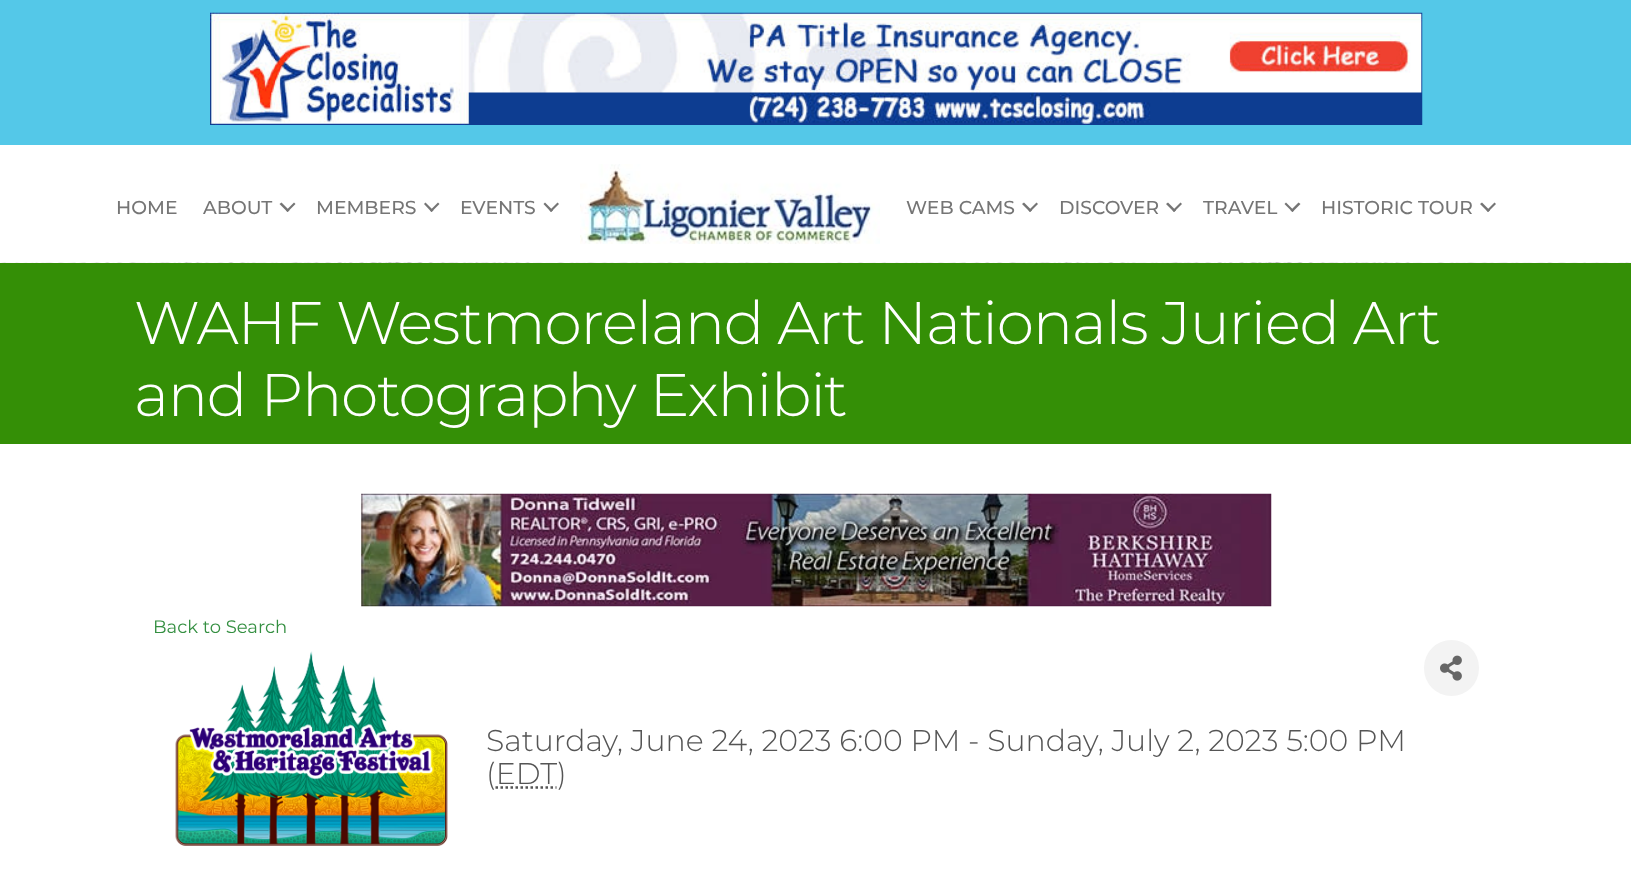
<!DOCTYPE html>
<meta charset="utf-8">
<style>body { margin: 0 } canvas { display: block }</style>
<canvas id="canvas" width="1631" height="877"></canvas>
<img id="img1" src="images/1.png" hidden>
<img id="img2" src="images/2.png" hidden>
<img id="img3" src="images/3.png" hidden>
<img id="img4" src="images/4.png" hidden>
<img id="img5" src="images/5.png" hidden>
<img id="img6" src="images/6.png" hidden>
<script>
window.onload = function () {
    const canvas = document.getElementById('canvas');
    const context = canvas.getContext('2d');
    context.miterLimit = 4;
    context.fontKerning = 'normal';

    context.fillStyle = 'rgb(255, 255, 255)';
    context.fillRect(0, 0, 1631, 877);
    context.fillStyle = 'rgb(84, 200, 232)';
    context.fillRect(0, 0, 1631, 145);
    context.drawImage(document.getElementById('img1'), 210, 12, 1213, 113);
    context.fillStyle = 'rgb(117, 117, 117)';
    context.beginPath();
    context.moveTo(294, 202.5);
    context.lineTo(295.5, 204);
    context.lineTo(287.5, 212);
    context.lineTo(286, 210.5);
    context.closePath();
    context.fill();
    context.beginPath();
    context.moveTo(281.5, 202.5);
    context.lineTo(289.5, 210.5);
    context.lineTo(287.5, 212);
    context.lineTo(279.5, 204);
    context.closePath();
    context.fill();
    context.beginPath();
    context.moveTo(438, 202.5);
    context.lineTo(439.5, 204);
    context.lineTo(431.5, 212);
    context.lineTo(430, 210.5);
    context.closePath();
    context.fill();
    context.beginPath();
    context.moveTo(425.5, 202.5);
    context.lineTo(433.5, 210.5);
    context.lineTo(431.5, 212);
    context.lineTo(424, 204);
    context.closePath();
    context.fill();
    context.beginPath();
    context.moveTo(557.5, 202.5);
    context.lineTo(559, 204);
    context.lineTo(551, 212);
    context.lineTo(549.5, 210.5);
    context.closePath();
    context.fill();
    context.beginPath();
    context.moveTo(545, 202.5);
    context.lineTo(553, 210.5);
    context.lineTo(551, 212);
    context.lineTo(543.5, 204);
    context.closePath();
    context.fill();
    context.drawImage(document.getElementById('img2'), 580, 164, 300, 80);
    context.beginPath();
    context.moveTo(1036.5, 202.5);
    context.lineTo(1038, 204);
    context.lineTo(1030, 212);
    context.lineTo(1028.5, 210.5);
    context.closePath();
    context.fill();
    context.beginPath();
    context.moveTo(1024, 202.5);
    context.lineTo(1032, 210.5);
    context.lineTo(1030, 212);
    context.lineTo(1022, 204);
    context.closePath();
    context.fill();
    context.beginPath();
    context.moveTo(1180.5, 202.5);
    context.lineTo(1182, 204);
    context.lineTo(1174, 212);
    context.lineTo(1172.5, 210.5);
    context.closePath();
    context.fill();
    context.beginPath();
    context.moveTo(1168, 202.5);
    context.lineTo(1176, 210.5);
    context.lineTo(1174, 212);
    context.lineTo(1166, 204);
    context.closePath();
    context.fill();
    context.beginPath();
    context.moveTo(1298.5, 202.5);
    context.lineTo(1300.5, 204);
    context.lineTo(1292.5, 212);
    context.lineTo(1290.5, 210.5);
    context.closePath();
    context.fill();
    context.beginPath();
    context.moveTo(1286, 202.5);
    context.lineTo(1294, 210.5);
    context.lineTo(1292.5, 212);
    context.lineTo(1284.5, 204);
    context.closePath();
    context.fill();
    context.beginPath();
    context.moveTo(1494.5, 202.5);
    context.lineTo(1496, 204);
    context.lineTo(1488, 212);
    context.lineTo(1486.5, 210.5);
    context.closePath();
    context.fill();
    context.beginPath();
    context.moveTo(1482, 202.5);
    context.lineTo(1490, 210.5);
    context.lineTo(1488, 212);
    context.lineTo(1480, 204);
    context.closePath();
    context.fill();
    context.drawImage(document.getElementById('img3'), 0, 262, 1631, 1);
    context.fillStyle = 'rgb(52, 143, 6)';
    context.fillRect(0, 263, 1631, 181);
    context.drawImage(document.getElementById('img4'), 361, 493, 911, 114);
    context.drawImage(document.getElementById('img5'), 175, 651, 273, 195);
    context.beginPath();
    context.moveTo(495.5, 787.5);
    context.lineTo(556.5, 787.5);
    context.strokeStyle = 'rgb(85, 85, 85)';
    context.lineWidth = 2.5;
    context.setLineDash([2.5, 2.5]);
    context.stroke();
    context.fillStyle = 'rgb(243, 243, 243)';
    context.beginPath();
    context.roundRect(1424, 640, 55, 56, 27.5);
    context.fill();
    context.drawImage(document.getElementById('img6'), 1440, 655, 22, 26);
    context.font = '500 18.75px Montserrat';
    context.fillStyle = 'rgb(117, 117, 117)';
    context.fillText('HOME', 116, 214);
    context.fillText('ABOUT', 203, 214);
    context.fillText('MEMBERS', 316, 214);
    context.fillText('EVENTS', 460, 214);
    context.fillText('WEB CAMS', 906, 214);
    context.fillText('DISCOVER', 1059, 214);
    context.fillText('TRAVEL', 1203, 214);
    context.fillText('HISTORIC TOUR', 1321, 214);
    context.letterSpacing = '-1.25px';
    context.font = '300 60px Montserrat';
    context.fillStyle = 'rgb(255, 255, 255)';
    context.fillText('WAHF Westmoreland Art Nationals Juried Art', 134, 344);
    context.fillText('and Photography Exhibit', 134, 416);
    context.letterSpacing = '0px';
    context.font = '18px Montserrat';
    context.fillStyle = 'rgb(52, 143, 65)';
    context.fillText('Back to Search', 153, 633);
    context.font = '300 30px Montserrat';
    context.fillStyle = 'rgb(85, 85, 85)';
    context.fillText('Saturday, June 24, 2023 6:00 PM - Sunday, July 2, 2023 5:00 PM', 486, 751);
    context.fillText('(EDT)', 486, 784);
};
</script>
